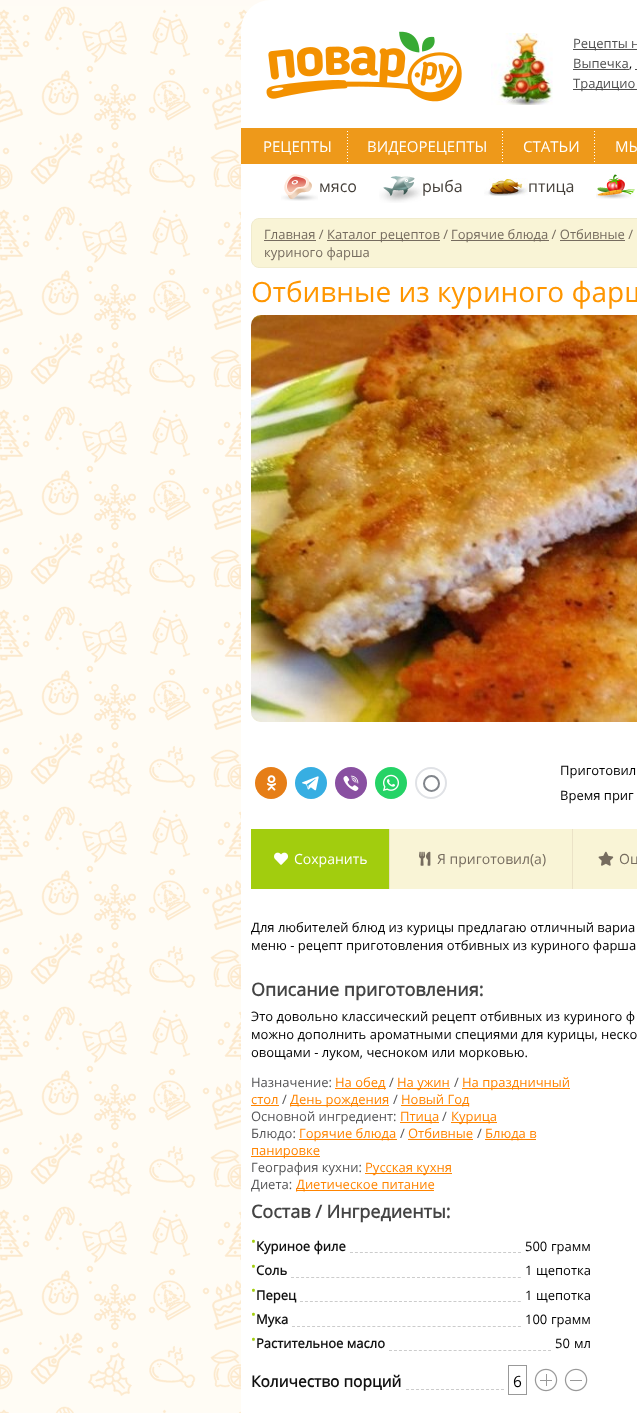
<!DOCTYPE html>
<meta charset="utf-8">
<style>body { margin: 0 } canvas { display: block }</style>
<canvas id="canvas" width="637" height="1413"></canvas>
<img id="img1" src="images/1.png" hidden>
<img id="img2" src="images/2.png" hidden>
<img id="img3" src="images/3.png" hidden>
<img id="img4" src="images/4.png" hidden>
<img id="img5" src="images/5.png" hidden>
<img id="img6" src="images/6.png" hidden>
<img id="img7" src="images/7.png" hidden>
<img id="img8" src="images/8.png" hidden>
<img id="img9" src="images/9.png" hidden>
<img id="img10" src="images/10.png" hidden>
<img id="img11" src="images/11.png" hidden>
<img id="img12" src="images/12.png" hidden>
<img id="img13" src="images/13.png" hidden>
<img id="img14" src="images/14.png" hidden>
<img id="img15" src="images/15.png" hidden>
<img id="img16" src="images/16.png" hidden>
<img id="img17" src="images/17.png" hidden>
<img id="img18" src="images/18.png" hidden>
<script>
window.onload = function () {
    const canvas = document.getElementById('canvas');
    const context = canvas.getContext('2d');
    context.miterLimit = 4;
    context.fontKerning = 'normal';

    context.fillStyle = 'rgb(255, 251, 245)';
    context.fillRect(0, 0, 637, 1413);
    context.drawImage(document.getElementById('img1'), 0, 6, 253, 1407);
    context.fillStyle = 'rgb(255, 255, 255)';
    context.beginPath();
    context.moveTo(271, 5);
    context.lineTo(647, 5);
    context.bezierCurveTo(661, 5, 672, 16, 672, 30);
    context.lineTo(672, 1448);
    context.lineTo(246, 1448);
    context.lineTo(246, 30);
    context.bezierCurveTo(246, 16, 257, 5, 271, 5);
    context.closePath();
    context.fill();
    context.strokeStyle = 'rgb(255, 255, 255)';
    context.lineWidth = 10;
    context.stroke();
    context.drawImage(document.getElementById('img2'), 266, 31, 196, 71);
    context.drawImage(document.getElementById('img3'), 491, 33, 62, 72);
    context.fillStyle = 'rgb(80, 80, 80)';
    context.fillRect(573, 49, 64, 1);
    context.fillRect(573, 69, 56, 1);
    context.fillRect(635, 69, 2, 1);
    context.fillRect(573, 89, 64, 1);
    context.fillStyle = 'rgb(238, 153, 26)';
    context.fillRect(241, 128, 396, 36);
    context.drawImage(document.getElementById('img4'), 347, 131, 1, 31);
    context.drawImage(document.getElementById('img4'), 502, 131, 1, 31);
    context.drawImage(document.getElementById('img4'), 594, 131, 1, 31);
    context.drawImage(document.getElementById('img5'), 281, 174, 37, 27);
    context.drawImage(document.getElementById('img6'), 379, 176, 43, 27);
    context.drawImage(document.getElementById('img7'), 484, 178, 44, 18);
    context.drawImage(document.getElementById('img8'), 596, 174, 39, 25);
    context.fillStyle = 'rgb(249, 244, 214)';
    context.beginPath();
    context.moveTo(259, 218.5);
    context.lineTo(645.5, 218.5);
    context.lineTo(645.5, 267.5);
    context.lineTo(259, 267.5);
    context.bezierCurveTo(255, 267.5, 251.5, 264, 251.5, 260);
    context.lineTo(251.5, 226);
    context.bezierCurveTo(251.5, 222, 255, 218.5, 259, 218.5);
    context.closePath();
    context.fill();
    context.strokeStyle = 'rgb(240, 235, 205)';
    context.lineWidth = 1;
    context.stroke();
    context.fillStyle = 'rgb(118, 108, 95)';
    context.fillRect(264, 240, 52, 1);
    context.fillRect(327, 240, 113, 1);
    context.fillRect(451, 240, 98, 1);
    context.fillRect(560, 240, 65, 1);
    context.fillStyle = 'rgb(249, 244, 214)';
    context.beginPath();
    context.roundRect(251, 315, 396, 407, 10);
    context.fill();
    context.drawImage(document.getElementById('img9'), 251, 315, 386, 407);
    context.fillStyle = 'rgb(230, 126, 23)';
    context.beginPath();
    context.arc(271, 783, 16, 0, 2 * Math.PI);
    context.fill();
    context.drawImage(document.getElementById('img10'), 266, 775, 10, 16);
    context.fillStyle = 'rgb(55, 174, 226)';
    context.beginPath();
    context.arc(311, 783, 16, 0, 2 * Math.PI);
    context.fill();
    context.drawImage(document.getElementById('img11'), 302, 776, 17, 15);
    context.fillStyle = 'rgb(137, 80, 161)';
    context.beginPath();
    context.arc(351, 783, 16, 0, 2 * Math.PI);
    context.fill();
    context.drawImage(document.getElementById('img12'), 343, 775, 16, 16);
    context.fillStyle = 'rgb(37, 211, 102)';
    context.beginPath();
    context.arc(391, 783, 16, 0, 2 * Math.PI);
    context.fill();
    context.drawImage(document.getElementById('img13'), 383, 774, 16, 17);
    context.beginPath();
    context.arc(431, 783, 15, 0, 2 * Math.PI);
    context.strokeStyle = 'rgb(224, 226, 230)';
    context.lineWidth = 2;
    context.stroke();
    context.beginPath();
    context.arc(431.5, 783.5, 7.5, 0, 2 * Math.PI);
    context.strokeStyle = 'rgb(129, 133, 139)';
    context.stroke();
    context.fillStyle = 'rgb(235, 226, 199)';
    context.fillRect(389, 829, 1, 60);
    context.fillStyle = 'rgb(162, 205, 14)';
    context.fillRect(251, 829, 138, 60);
    context.drawImage(document.getElementById('img14'), 274, 852, 14, 13);
    context.fillStyle = 'rgb(249, 244, 214)';
    context.fillRect(390, 829, 182, 60);
    context.fillStyle = 'rgb(235, 226, 199)';
    context.fillRect(572, 829, 1, 60);
    context.drawImage(document.getElementById('img15'), 419, 851, 12, 15);
    context.fillStyle = 'rgb(249, 244, 214)';
    context.fillRect(573, 829, 64, 60);
    context.drawImage(document.getElementById('img16'), 598, 851, 16, 15);
    context.fillStyle = 'rgb(255, 132, 0)';
    context.fillRect(335, 1088, 51, 1);
    context.fillRect(397, 1088, 53, 1);
    context.fillRect(462, 1088, 108, 1);
    context.fillRect(251, 1105, 28, 1);
    context.fillRect(290, 1105, 99, 1);
    context.fillRect(401, 1105, 68, 1);
    context.fillRect(400, 1122, 39, 1);
    context.fillRect(451, 1122, 46, 1);
    context.fillRect(299, 1139, 98, 1);
    context.fillRect(408, 1139, 65, 1);
    context.fillRect(485, 1139, 51, 1);
    context.fillRect(251, 1156, 69, 1);
    context.fillRect(365, 1173, 87, 1);
    context.fillRect(296, 1190, 138, 1);
    context.beginPath();
    context.moveTo(350, 1252.5);
    context.lineTo(521, 1252.5);
    context.strokeStyle = 'rgb(204, 204, 204)';
    context.lineWidth = 1;
    context.setLineDash([3, 1.94]);
    context.stroke();
    context.beginPath();
    context.moveTo(291, 1277.5);
    context.lineTo(521, 1277.5);
    context.setLineDash([3, 2.04]);
    context.stroke();
    context.beginPath();
    context.moveTo(300, 1301.5);
    context.lineTo(521, 1301.5);
    context.setLineDash([3, 1.95]);
    context.stroke();
    context.beginPath();
    context.moveTo(292, 1326.5);
    context.lineTo(521, 1326.5);
    context.setLineDash([3, 2.02]);
    context.stroke();
    context.beginPath();
    context.moveTo(389, 1350.5);
    context.lineTo(551, 1350.5);
    context.setLineDash([3, 1.97]);
    context.stroke();
    context.strokeStyle = 'rgb(153, 153, 153)';
    context.setLineDash([]);
    context.strokeRect(508.5, 1365.5, 18, 29);
    context.drawImage(document.getElementById('img17'), 534, 1368, 24, 24);
    context.drawImage(document.getElementById('img18'), 564, 1368, 24, 24);
    context.beginPath();
    context.moveTo(406, 1389.5);
    context.lineTo(504, 1389.5);
    context.strokeStyle = 'rgb(204, 204, 204)';
    context.setLineDash([3, 2]);
    context.stroke();
    context.font = '13px Open Sans';
    context.fillStyle = 'rgb(80, 80, 80)';
    context.fillText('Рецепты н', 573, 48);
    context.fillText('Выпечка', 573, 68);
    context.fillStyle = 'rgb(0, 0, 0)';
    context.fillText(',', 629, 68);
    context.fillStyle = 'rgb(80, 80, 80)';
    context.fillText('Традицио', 573, 88);
    context.font = '15px Open Sans';
    context.fillStyle = 'rgb(255, 255, 255)';
    context.fillText('РЕЦЕПТЫ', 263, 152);
    context.fillText('ВИДЕОРЕЦЕПТЫ', 367, 152);
    context.fillText('СТАТЬИ', 523, 152);
    context.fillText('МЫ', 615, 152);
    context.font = '16px Open Sans';
    context.fillStyle = 'rgb(68, 63, 57)';
    context.fillText('мясо', 319, 192);
    context.fillText('рыба', 422, 192);
    context.fillText('птица', 528, 192);
    context.font = '13px Open Sans';
    context.fillStyle = 'rgb(118, 108, 95)';
    context.fillText('Главная /', 264, 239);
    context.fillText('Каталог рецептов /', 327, 239);
    context.fillText('Горячие блюда / Отбивные /', 451, 239);
    context.fillText('куриного фарша', 264, 257);
    context.font = '28px Open Sans';
    context.fillStyle = 'rgb(255, 150, 0)';
    context.fillText('Отбивные из куриного фарш', 251, 302);
    context.font = '13px Open Sans';
    context.fillStyle = 'rgb(0, 0, 0)';
    context.fillText('Приготовил', 560, 775);
    context.fillText('Время приг', 560, 800);
    context.font = '14px Open Sans';
    context.fillStyle = 'rgb(255, 255, 255)';
    context.fillText('Сохранить', 294, 864);
    context.fillStyle = 'rgb(118, 108, 95)';
    context.fillText('Я приготовил(а)', 437, 864);
    context.fillText('Оц', 619, 864);
    context.font = '13px Open Sans';
    context.fillStyle = 'rgb(0, 0, 0)';
    context.fillText('Для любителей блюд из курицы предлагаю отличный вариа', 251, 932);
    context.fillText('меню - рецепт приготовления отбивных из куриного фарша', 251, 950);
    context.font = 'bold 18px Open Sans';
    context.fillStyle = 'rgb(68, 68, 68)';
    context.fillText('Описание приготовления:', 251, 996);
    context.font = '13px Open Sans';
    context.fillStyle = 'rgb(0, 0, 0)';
    context.fillText('Это довольно классический рецепт отбивных из куриного ф', 251, 1021);
    context.fillText('можно дополнить ароматными специями для курицы, неско', 251, 1039);
    context.fillText('овощами - луком, чесноком или морковью.', 251, 1057);
    context.fillStyle = 'rgb(85, 85, 87)';
    context.fillText('Назначение:', 251, 1087);
    context.fillStyle = 'rgb(255, 132, 0)';
    context.fillText('На обед', 335, 1087);
    context.fillStyle = 'rgb(85, 85, 87)';
    context.fillText('/', 389, 1087);
    context.fillStyle = 'rgb(255, 132, 0)';
    context.fillText('На ужин', 397, 1087);
    context.fillStyle = 'rgb(85, 85, 87)';
    context.fillText('/', 454, 1087);
    context.fillStyle = 'rgb(255, 132, 0)';
    context.fillText('На праздничный', 462, 1087);
    context.fillText('стол', 251, 1104);
    context.fillStyle = 'rgb(85, 85, 87)';
    context.fillText('/', 282, 1104);
    context.fillStyle = 'rgb(255, 132, 0)';
    context.fillText('День рождения', 290, 1104);
    context.fillStyle = 'rgb(85, 85, 87)';
    context.fillText('/', 393, 1104);
    context.fillStyle = 'rgb(255, 132, 0)';
    context.fillText('Новый Год', 401, 1104);
    context.fillStyle = 'rgb(85, 85, 87)';
    context.fillText('Основной ингредиент:', 251, 1121);
    context.fillStyle = 'rgb(255, 132, 0)';
    context.fillText('Птица', 400, 1121);
    context.fillStyle = 'rgb(85, 85, 87)';
    context.fillText('/', 442, 1121);
    context.fillStyle = 'rgb(255, 132, 0)';
    context.fillText('Курица', 451, 1121);
    context.fillStyle = 'rgb(85, 85, 87)';
    context.fillText('Блюдо:', 251, 1138);
    context.fillStyle = 'rgb(255, 132, 0)';
    context.fillText('Горячие блюда', 299, 1138);
    context.fillStyle = 'rgb(85, 85, 87)';
    context.fillText('/', 400, 1138);
    context.fillStyle = 'rgb(255, 132, 0)';
    context.fillText('Отбивные', 408, 1138);
    context.fillStyle = 'rgb(85, 85, 87)';
    context.fillText('/', 477, 1138);
    context.fillStyle = 'rgb(255, 132, 0)';
    context.fillText('Блюда в', 485, 1138);
    context.fillText('панировке', 251, 1155);
    context.fillStyle = 'rgb(85, 85, 87)';
    context.fillText('География кухни:', 251, 1172);
    context.fillStyle = 'rgb(255, 132, 0)';
    context.fillText('Русская кухня', 365, 1172);
    context.fillStyle = 'rgb(85, 85, 87)';
    context.fillText('Диета:', 251, 1189);
    context.fillStyle = 'rgb(255, 132, 0)';
    context.fillText('Диетическое питание', 296, 1189);
    context.font = 'bold 18px Open Sans';
    context.fillStyle = 'rgb(68, 68, 68)';
    context.fillText('Состав / Ингредиенты:', 251, 1218);
    context.font = '13px Open Sans';
    context.fillStyle = 'rgb(162, 205, 14)';
    context.fillText('•', 251, 1246);
    context.font = 'bold 13px Open Sans';
    context.fillStyle = 'rgb(17, 17, 17)';
    context.fillText('Куриное филе', 256, 1251);
    context.font = '13px Open Sans';
    context.fillStyle = 'rgb(0, 0, 0)';
    context.fillText('500', 525, 1251);
    context.fillText('грамм', 551, 1251);
    context.fillStyle = 'rgb(162, 205, 14)';
    context.fillText('•', 251, 1271);
    context.font = 'bold 13px Open Sans';
    context.fillStyle = 'rgb(17, 17, 17)';
    context.fillText('Соль', 256, 1275);
    context.font = '13px Open Sans';
    context.fillStyle = 'rgb(0, 0, 0)';
    context.fillText('1', 525, 1275);
    context.fillText('щепотка', 536, 1275);
    context.fillStyle = 'rgb(162, 205, 14)';
    context.fillText('•', 251, 1295);
    context.font = 'bold 13px Open Sans';
    context.fillStyle = 'rgb(17, 17, 17)';
    context.fillText('Перец', 256, 1300);
    context.font = '13px Open Sans';
    context.fillStyle = 'rgb(0, 0, 0)';
    context.fillText('1', 525, 1300);
    context.fillText('щепотка', 536, 1300);
    context.fillStyle = 'rgb(162, 205, 14)';
    context.fillText('•', 251, 1319);
    context.font = 'bold 13px Open Sans';
    context.fillStyle = 'rgb(17, 17, 17)';
    context.fillText('Мука', 256, 1324);
    context.font = '13px Open Sans';
    context.fillStyle = 'rgb(0, 0, 0)';
    context.fillText('100', 525, 1324);
    context.fillText('грамм', 551, 1324);
    context.fillStyle = 'rgb(162, 205, 14)';
    context.fillText('•', 251, 1344);
    context.font = 'bold 13px Open Sans';
    context.fillStyle = 'rgb(17, 17, 17)';
    context.fillText('Растительное масло', 256, 1348);
    context.font = '13px Open Sans';
    context.fillStyle = 'rgb(0, 0, 0)';
    context.fillText('50', 555, 1348);
    context.fillText('мл', 574, 1348);
    context.font = 'bold 15.5px Open Sans';
    context.fillStyle = 'rgb(17, 17, 17)';
    context.fillText('Количество порций', 251, 1387);
    context.font = '15.5px Open Sans';
    context.fillStyle = 'rgb(0, 0, 0)';
    context.fillText('6', 513, 1387);
};
</script>
